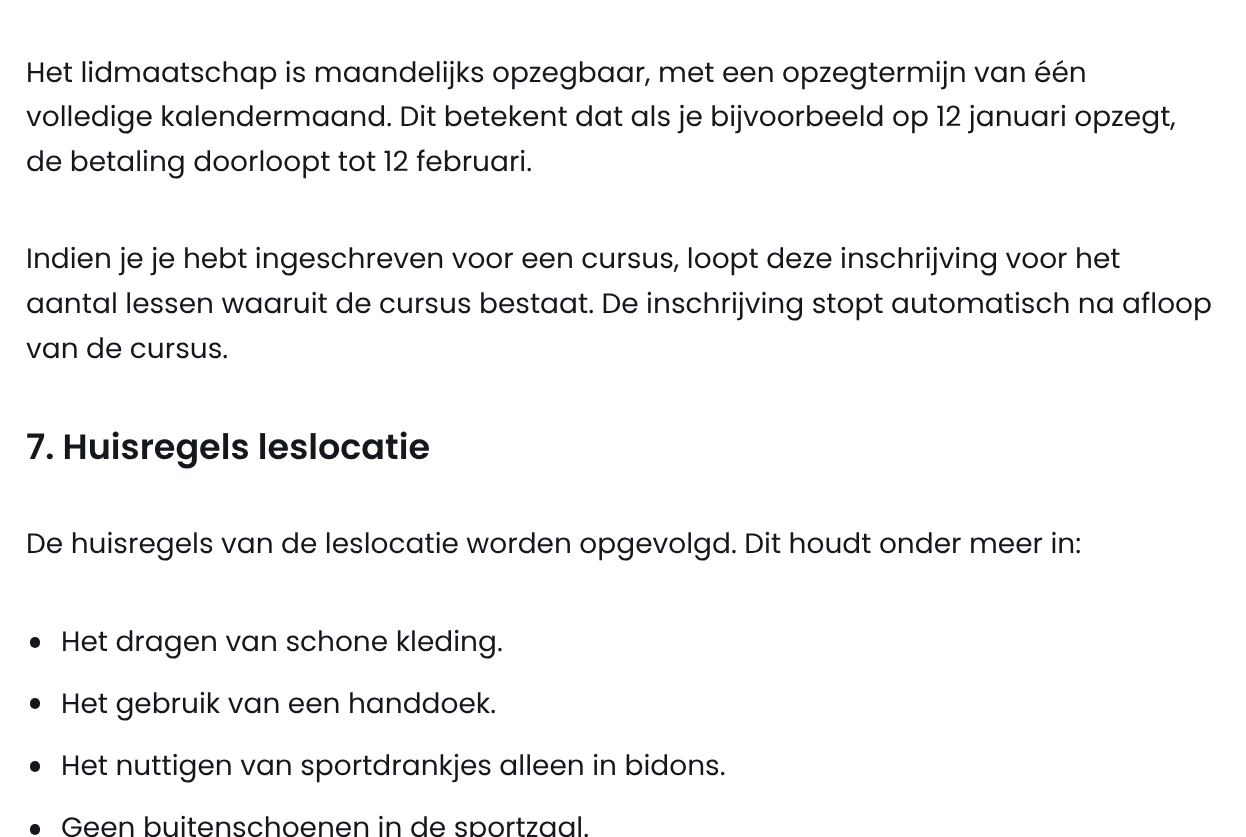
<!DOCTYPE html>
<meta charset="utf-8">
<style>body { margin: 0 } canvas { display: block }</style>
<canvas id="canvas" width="1246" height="837"></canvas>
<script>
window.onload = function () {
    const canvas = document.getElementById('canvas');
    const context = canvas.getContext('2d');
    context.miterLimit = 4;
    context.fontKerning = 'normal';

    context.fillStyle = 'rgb(255, 255, 255)';
    context.fillRect(0, 0, 1246, 837);
    context.fillStyle = 'rgb(20, 23, 28)';
    context.beginPath();
    context.roundRect(30, 637, 10, 11, 5);
    context.fill();
    context.beginPath();
    context.roundRect(30, 698, 10, 11, 5);
    context.fill();
    context.beginPath();
    context.roundRect(30, 761, 10, 11, 5);
    context.fill();
    context.beginPath();
    context.roundRect(30, 824, 10, 11, 5);
    context.fill();
    context.font = '28px Poppins';
    context.fillText('Het lidmaatschap is maandelijks opzegbaar, met een opzegtermijn van één', 26, 82);
    context.fillText('volledige kalendermaand. Dit betekent dat als je bijvoorbeeld op 12 januari opzegt,', 26, 126);
    context.fillText('de betaling doorloopt tot 12 februari.', 26, 171);
    context.fillText('Indien je je hebt ingeschreven voor een cursus, loopt deze inschrijving voor het', 26, 268);
    context.fillText('aantal lessen waaruit de cursus bestaat. De inschrijving stopt automatisch na afloop', 26, 313);
    context.fillText('van de cursus.', 26, 358);
    context.font = '600 35px Poppins';
    context.fillText('7. Huisregels leslocatie', 26, 459);
    context.font = '28px Poppins';
    context.fillText('De huisregels van de leslocatie worden opgevolgd. Dit houdt onder meer in:', 26, 553);
    context.fillText('Het dragen van schone kleding.', 61, 651);
    context.fillText('Het gebruik van een handdoek.', 61, 713);
    context.fillText('Het nuttigen van sportdrankjes alleen in bidons.', 61, 775);
    context.fillText('Geen buitenschoenen in de sportzaal.', 61, 837);
};
</script>
